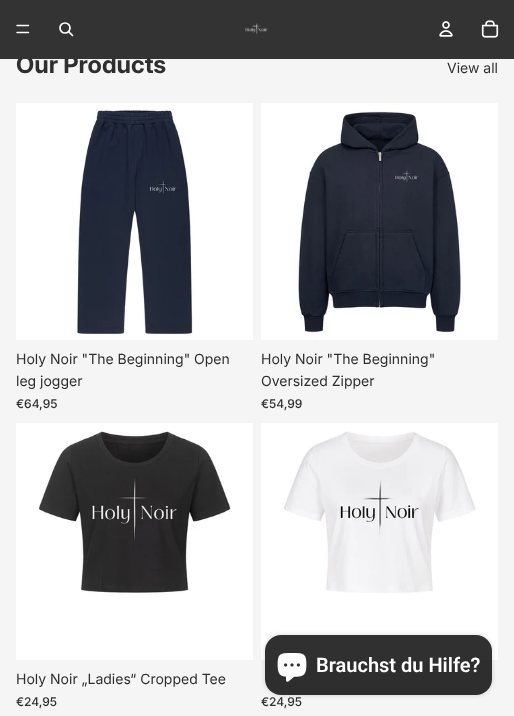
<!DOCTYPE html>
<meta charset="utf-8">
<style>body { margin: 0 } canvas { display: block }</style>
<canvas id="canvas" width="514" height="716"></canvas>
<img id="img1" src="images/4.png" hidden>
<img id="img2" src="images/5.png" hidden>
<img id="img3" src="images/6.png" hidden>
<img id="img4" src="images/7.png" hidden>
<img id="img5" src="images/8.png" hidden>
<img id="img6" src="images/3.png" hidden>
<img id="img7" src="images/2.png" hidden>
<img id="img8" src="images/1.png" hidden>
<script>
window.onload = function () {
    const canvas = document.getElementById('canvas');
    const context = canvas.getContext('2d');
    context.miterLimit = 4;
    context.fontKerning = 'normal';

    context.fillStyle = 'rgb(245, 245, 245)';
    context.fillRect(0, 0, 514, 716);
    context.drawImage(document.getElementById('img1'), 16, 103, 237, 237);
    context.drawImage(document.getElementById('img2'), 261, 103, 237, 237);
    context.drawImage(document.getElementById('img3'), 16, 423, 237, 237);
    context.drawImage(document.getElementById('img4'), 261, 423, 237, 237);
    context.save();
    context.beginPath();
    context.moveTo(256, 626);
    context.lineTo(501, 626);
    context.lineTo(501, 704);
    context.lineTo(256, 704);
    context.closePath();
    context.moveTo(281, 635);
    context.lineTo(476, 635);
    context.bezierCurveTo(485, 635, 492, 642, 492, 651);
    context.lineTo(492, 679);
    context.bezierCurveTo(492, 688, 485, 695, 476, 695);
    context.lineTo(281, 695);
    context.bezierCurveTo(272, 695, 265, 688, 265, 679);
    context.lineTo(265, 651);
    context.bezierCurveTo(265, 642, 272, 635, 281, 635);
    context.closePath();
    context.clip('evenodd');
    context.fillStyle = 'rgba(0, 0, 0, 0.15)';
    context.filter = 'blur(2.5px)';
    context.beginPath();
    context.roundRect(265, 635, 227, 60, 16);
    context.fill();
    context.filter = 'none';
    context.restore();
    context.fillStyle = 'rgba(0, 0, 0, 0.81)';
    context.beginPath();
    context.roundRect(265, 635, 227, 60, 16);
    context.fill();
    context.drawImage(document.getElementById('img5'), 277, 653, 30, 29);
    context.font = 'bold 24px Inter';
    context.fillStyle = 'rgb(47, 47, 47)';
    context.fillText('Our Products', 16, 73);
    context.fillStyle = 'rgb(51, 51, 51)';
    context.fillRect(0, 0, 514, 59);
    context.drawImage(document.getElementById('img6'), 481, 20, 18, 18);
    context.drawImage(document.getElementById('img7'), 439, 21, 14, 16);
    context.beginPath();
    context.arc(65, 28, 5, 0, 2 * Math.PI);
    context.strokeStyle = 'rgb(255, 255, 255)';
    context.lineWidth = 1.7;
    context.stroke();
    context.beginPath();
    context.moveTo(69, 32);
    context.lineTo(72.5, 35.5);
    context.lineCap = 'round';
    context.lineJoin = 'round';
    context.stroke();
    context.beginPath();
    context.moveTo(17, 25.5);
    context.lineTo(28.5, 25.5);
    context.moveTo(17, 32.5);
    context.lineTo(28.5, 32.5);
    context.lineWidth = 1.5;
    context.lineJoin = 'miter';
    context.stroke();
    context.drawImage(document.getElementById('img8'), 245, 23, 23, 13);
    context.font = '14px Inter';
    context.fillStyle = 'rgb(47, 47, 47)';
    context.fillText('View all', 447, 73);
    context.fillText('Holy Noir "The Beginning" Open', 16, 364);
    context.fillText('leg jogger', 16, 386);
    context.font = '500 12px Inter';
    context.fillText('€64,95', 16, 408);
    context.font = '14px Inter';
    context.fillText('Holy Noir "The Beginning"', 261, 364);
    context.fillText('Oversized Zipper', 261, 386);
    context.font = '500 12px Inter';
    context.fillText('€54,99', 261, 408);
    context.font = '14px Inter';
    context.fillText('Holy Noir „Ladies“ Cropped Tee', 16, 684);
    context.font = '500 12px Inter';
    context.fillText('€24,95', 16, 706);
    context.fillText('€24,95', 261, 706);
    context.font = '600 20px Roboto';
    context.fillStyle = 'rgb(255, 255, 255)';
    context.fillText('Brauchst du Hilfe?', 316, 672);
};
</script>
